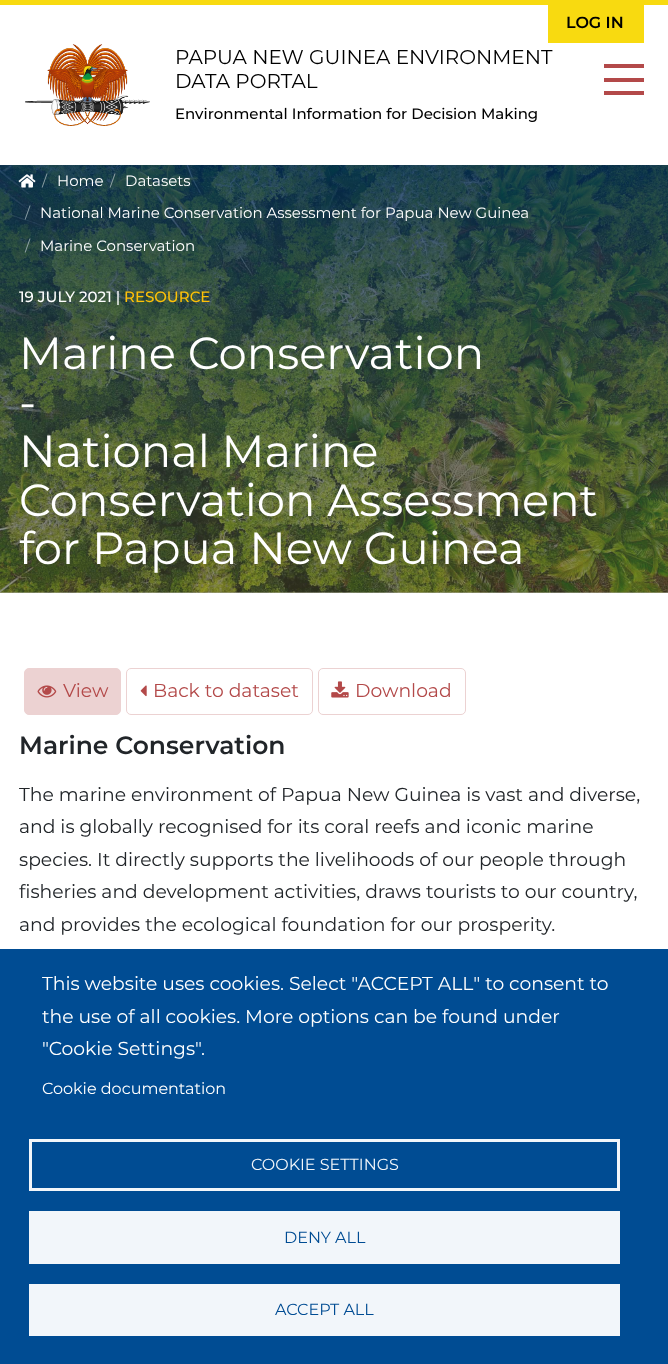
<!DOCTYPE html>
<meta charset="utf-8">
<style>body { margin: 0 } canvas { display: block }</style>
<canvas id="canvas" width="668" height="1364"></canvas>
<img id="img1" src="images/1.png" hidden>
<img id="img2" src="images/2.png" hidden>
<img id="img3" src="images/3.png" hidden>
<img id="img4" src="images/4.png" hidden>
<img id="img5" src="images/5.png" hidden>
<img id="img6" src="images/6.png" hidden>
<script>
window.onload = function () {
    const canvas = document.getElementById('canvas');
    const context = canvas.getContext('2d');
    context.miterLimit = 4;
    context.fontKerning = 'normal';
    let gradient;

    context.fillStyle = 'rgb(255, 255, 255)';
    context.fillRect(0, 0, 668, 1364);
    context.fillStyle = 'rgb(248, 218, 16)';
    context.fillRect(0, 0, 668, 5);
    context.fillRect(548, 5, 96, 38);
    context.drawImage(document.getElementById('img1'), 25, 44, 125, 82);
    context.fillStyle = 'rgb(179, 73, 73)';
    context.fillRect(604, 78, 40, 4);
    context.fillRect(604, 64, 40, 4);
    context.fillRect(604, 91, 40, 4);
    context.drawImage(document.getElementById('img2'), 0, 165, 668, 428);
    gradient = context.createLinearGradient(334, 165, 334, 593);
    gradient.addColorStop(0, 'rgba(3, 48, 89, 0.8)');
    gradient.addColorStop(1, 'rgba(87, 87, 53, 0.5)');
    context.fillStyle = gradient;
    context.fillRect(0, 165, 668, 428);
    context.drawImage(document.getElementById('img3'), 18, 174, 18, 14);
    context.fillStyle = 'rgb(236, 210, 210)';
    context.beginPath();
    context.roundRect(24.5, 668.5, 96, 46, 4.5);
    context.fill();
    context.strokeStyle = 'rgb(236, 210, 210)';
    context.stroke();
    context.drawImage(document.getElementById('img4'), 37, 685, 20, 13);
    context.beginPath();
    context.roundRect(126.5, 668.5, 186, 46, 4.5);
    context.stroke();
    context.drawImage(document.getElementById('img5'), 140, 685, 7, 12);
    context.beginPath();
    context.roundRect(318.5, 668.5, 147, 46, 4.5);
    context.stroke();
    context.drawImage(document.getElementById('img6'), 331, 681, 18, 17);
    context.fillStyle = 'rgb(0, 76, 147)';
    context.fillRect(0, 949, 668, 415);
    context.strokeStyle = 'rgb(242, 246, 250)';
    context.lineWidth = 3;
    context.strokeRect(30.5, 1140.5, 588, 49);
    context.fillStyle = 'rgb(242, 246, 250)';
    context.fillRect(29, 1211, 591, 53);
    context.fillRect(29, 1284, 591, 52);
    context.font = '600 16px Montserrat';
    context.fillStyle = 'rgb(0, 0, 0)';
    context.fillText('LOG IN', 566, 28);
    context.font = '20px Montserrat';
    context.fillText('PAPUA NEW GUINEA ENVIRONMENT', 175, 64);
    context.fillText('DATA PORTAL', 175, 88);
    context.font = '500 15px Montserrat';
    context.fillText('Environmental Information for Decision Making', 175, 119);
    context.font = '15px Montserrat';
    context.fillStyle = 'rgb(136, 156, 164)';
    context.fillText('/', 42, 186);
    context.fillStyle = 'rgb(255, 255, 255)';
    context.fillText('Home', 57, 186);
    context.fillStyle = 'rgb(143, 161, 165)';
    context.fillText('/', 110, 186);
    context.fillStyle = 'rgb(255, 255, 255)';
    context.fillText('Datasets', 125, 186);
    context.fillStyle = 'rgb(136, 156, 164)';
    context.fillText('/', 25, 218);
    context.fillStyle = 'rgb(255, 255, 255)';
    context.fillText('National Marine Conservation Assessment for Papua New Guinea', 40, 218);
    context.fillStyle = 'rgb(143, 161, 165)';
    context.fillText('/', 25, 251);
    context.fillStyle = 'rgb(255, 255, 255)';
    context.fillText('Marine Conservation', 40, 251);
    context.font = '500 15px Montserrat';
    context.fillText('19 JULY 2021 |', 19, 302);
    context.fillStyle = 'rgb(255, 193, 7)';
    context.fillText('RESOURCE', 124, 302);
    context.font = '45px Montserrat';
    context.fillStyle = 'rgb(255, 255, 255)';
    context.fillText('Marine Conservation', 19, 369);
    context.fillText('-', 19, 418);
    context.fillText('National Marine', 19, 467);
    context.fillText('Conservation Assessment', 19, 516);
    context.fillText('for Papua New Guinea', 19, 564);
    context.font = '18.75px Montserrat';
    context.fillStyle = 'rgb(179, 73, 73)';
    context.fillText('View', 63, 697);
    context.fillText('Back to dataset', 153, 697);
    context.fillText('Download', 355, 697);
    context.font = '600 25px Montserrat';
    context.fillStyle = 'rgb(33, 37, 41)';
    context.fillText('Marine Conservation', 19, 754);
    context.font = '18.75px Montserrat';
    context.fillText('The marine environment of Papua New Guinea is vast and diverse,', 19, 801);
    context.fillText('and is globally recognised for its coral reefs and iconic marine', 19, 833);
    context.fillText('species. It directly supports the livelihoods of our people through', 19, 866);
    context.fillText('fisheries and development activities, draws tourists to our country,', 19, 898);
    context.fillText('and provides the ecological foundation for our prosperity.', 19, 931);
    context.fillStyle = 'rgb(255, 255, 255)';
    context.fillText('This website uses cookies. Select "ACCEPT ALL" to consent to', 42, 990);
    context.fillText('the use of all cookies. More options can be found under', 42, 1023);
    context.fillText('"Cookie Settings".', 42, 1055);
    context.font = '16px Montserrat';
    context.fillText('Cookie documentation', 42, 1094);
    context.fillStyle = 'rgb(242, 246, 250)';
    context.fillText('COOKIE SETTINGS', 251, 1170);
    context.fillStyle = 'rgb(0, 76, 147)';
    context.fillText('DENY ALL', 284, 1243);
    context.fillText('ACCEPT ALL', 275, 1315);
};
</script>
